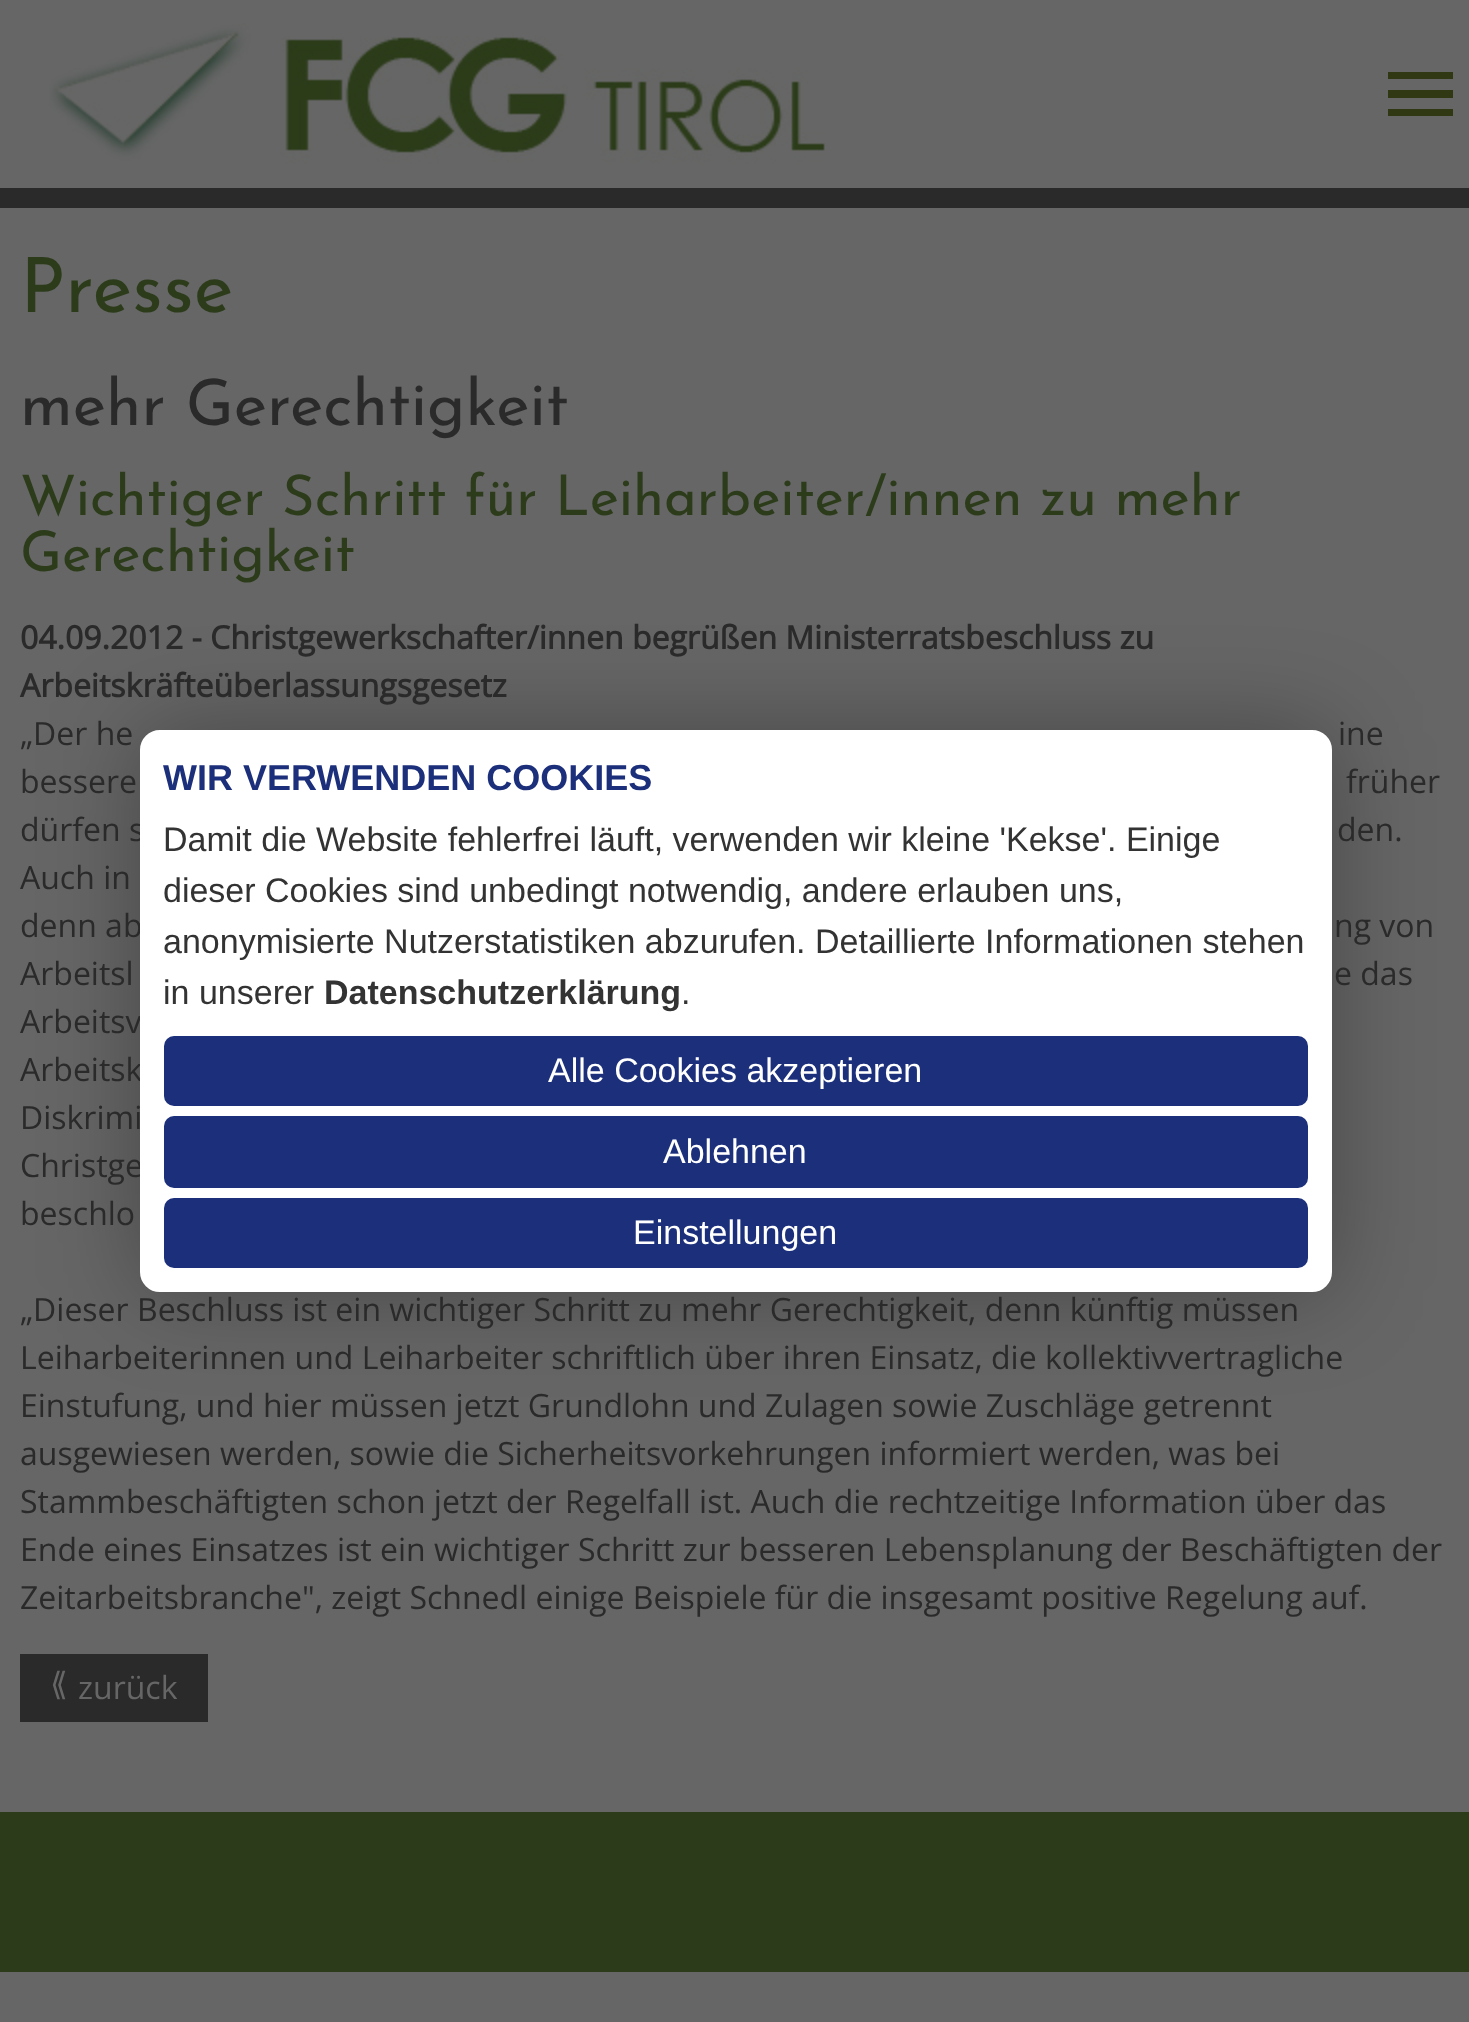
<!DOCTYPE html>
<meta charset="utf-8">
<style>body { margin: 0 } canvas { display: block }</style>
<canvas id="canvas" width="1469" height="2022"></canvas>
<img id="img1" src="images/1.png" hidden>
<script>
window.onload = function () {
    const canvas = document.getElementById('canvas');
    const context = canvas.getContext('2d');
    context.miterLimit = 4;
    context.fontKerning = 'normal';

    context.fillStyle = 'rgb(102, 102, 102)';
    context.fillRect(0, 0, 1469, 2022);
    context.drawImage(document.getElementById('img1'), 49, 23, 776, 141);
    context.fillStyle = 'rgb(47, 56, 18)';
    context.beginPath();
    context.moveTo(1388, 72);
    context.lineTo(1453, 72);
    context.lineTo(1453, 79);
    context.lineTo(1388, 79);
    context.closePath();
    context.moveTo(1388, 90);
    context.lineTo(1453, 90);
    context.lineTo(1453, 98);
    context.lineTo(1388, 98);
    context.closePath();
    context.moveTo(1388, 109);
    context.lineTo(1453, 109);
    context.lineTo(1453, 116);
    context.lineTo(1388, 116);
    context.closePath();
    context.fill();
    context.fillStyle = 'rgb(42, 42, 42)';
    context.fillRect(0, 188, 1469, 20);
    context.fillRect(20, 1654, 188, 68);
    context.fillStyle = 'rgb(44, 60, 27)';
    context.fillRect(0, 1812, 1469, 160);
    context.fillStyle = 'rgba(0, 0, 0, 0.3)';
    context.filter = 'blur(48px)';
    context.beginPath();
    context.roundRect(140, 730, 1192, 562, 20);
    context.fill();
    context.filter = 'none';
    context.font = '76px Josefin Sans';
    context.fillStyle = 'rgb(44, 60, 27)';
    context.fillText('Presse', 20, 312);
    context.font = '64px Josefin Sans';
    context.fillStyle = 'rgb(42, 42, 42)';
    context.fillText('mehr Gerechtigkeit', 20, 425);
    context.font = '56px Josefin Sans';
    context.fillStyle = 'rgb(44, 60, 27)';
    context.fillText('Wichtiger Schritt für Leiharbeiter/innen zu mehr', 20, 515);
    context.fillText('Gerechtigkeit', 20, 571);
    context.font = 'bold 32px Open Sans';
    context.fillStyle = 'rgb(42, 42, 42)';
    context.fillText('04.09.2012 - Christgewerkschafter/innen begrüßen Ministerratsbeschluss zu', 20, 649);
    context.fillText('Arbeitskräfteüberlassungsgesetz', 20, 697);
    context.font = '32px Open Sans';
    context.fillText('„Der he', 20, 745);
    context.fillText('ine', 1338, 745);
    context.fillText('bessere', 20, 793);
    context.fillText('früher', 1346, 793);
    context.fillText('dürfen s', 20, 841);
    context.fillText('den.', 1337, 841);
    context.fillText('Auch in', 20, 889);
    context.fillText('denn ab', 20, 937);
    context.fillText('ng von', 1334, 937);
    context.fillText('Arbeitsl', 20, 985);
    context.fillText('e das', 1334, 985);
    context.fillText('Arbeitsv', 20, 1033);
    context.fillText('Arbeitsk', 20, 1081);
    context.fillText('Diskrimi', 20, 1129);
    context.fillText('Christge', 20, 1177);
    context.fillText('beschlo', 20, 1225);
    context.fillText('„Dieser Beschluss ist ein wichtiger Schritt zu mehr Gerechtigkeit, denn künftig müssen', 20, 1321);
    context.fillText('Leiharbeiterinnen und Leiharbeiter schriftlich über ihren Einsatz, die kollektivvertragliche', 20, 1369);
    context.fillText('Einstufung, und hier müssen jetzt Grundlohn und Zulagen sowie Zuschläge getrennt', 20, 1417);
    context.fillText('ausgewiesen werden, sowie die Sicherheitsvorkehrungen informiert werden, was bei', 20, 1465);
    context.fillText('Stammbeschäftigten schon jetzt der Regelfall ist. Auch die rechtzeitige Information über das', 20, 1513);
    context.fillText('Ende eines Einsatzes ist ein wichtiger Schritt zur besseren Lebensplanung der Beschäftigten der', 20, 1561);
    context.fillText('Zeitarbeitsbranche", zeigt Schnedl einige Beispiele für die insgesamt positive Regelung auf.', 20, 1609);
    context.font = '32px DejaVu Sans';
    context.fillStyle = 'rgb(102, 102, 102)';
    context.fillText('⟪', 50, 1695);
    context.font = '32px Open Sans';
    context.fillText('zurück', 78, 1699);
    context.fillStyle = 'rgb(255, 255, 255)';
    context.beginPath();
    context.roundRect(142, 732, 1188, 558, 18);
    context.fill();
    context.strokeStyle = 'rgb(255, 255, 255)';
    context.lineWidth = 4;
    context.stroke();
    context.font = 'bold 36px Liberation Sans';
    context.fillStyle = 'rgb(28, 47, 123)';
    context.fillText('WIR VERWENDEN COOKIES', 163, 790);
    context.font = '34px Liberation Sans';
    context.fillStyle = 'rgb(51, 51, 51)';
    context.fillText('Damit die Website fehlerfrei läuft, verwenden wir kleine \'Kekse\'. Einige', 163, 851);
    context.fillText('dieser Cookies sind unbedingt notwendig, andere erlauben uns,', 163, 902);
    context.fillText('anonymisierte Nutzerstatistiken abzurufen. Detaillierte Informationen stehen', 163, 953);
    context.fillText('in unserer', 163, 1004);
    context.font = 'bold 34px Liberation Sans';
    context.fillText('Datenschutzerklärung', 324, 1004);
    context.font = '34px Liberation Sans';
    context.fillText('.', 681, 1004);
    context.fillStyle = 'rgb(28, 47, 123)';
    context.beginPath();
    context.roundRect(164, 1036, 1144, 70, 10);
    context.fill();
    context.fillStyle = 'rgb(255, 255, 255)';
    context.fillText('Alle Cookies akzeptieren', 548, 1082);
    context.fillStyle = 'rgb(28, 47, 123)';
    context.beginPath();
    context.roundRect(164, 1116, 1144, 72, 10);
    context.fill();
    context.fillStyle = 'rgb(255, 255, 255)';
    context.fillText('Ablehnen', 663, 1163);
    context.fillStyle = 'rgb(28, 47, 123)';
    context.beginPath();
    context.roundRect(164, 1198, 1144, 70, 10);
    context.fill();
    context.fillStyle = 'rgb(255, 255, 255)';
    context.fillText('Einstellungen', 633, 1244);
};
</script>
